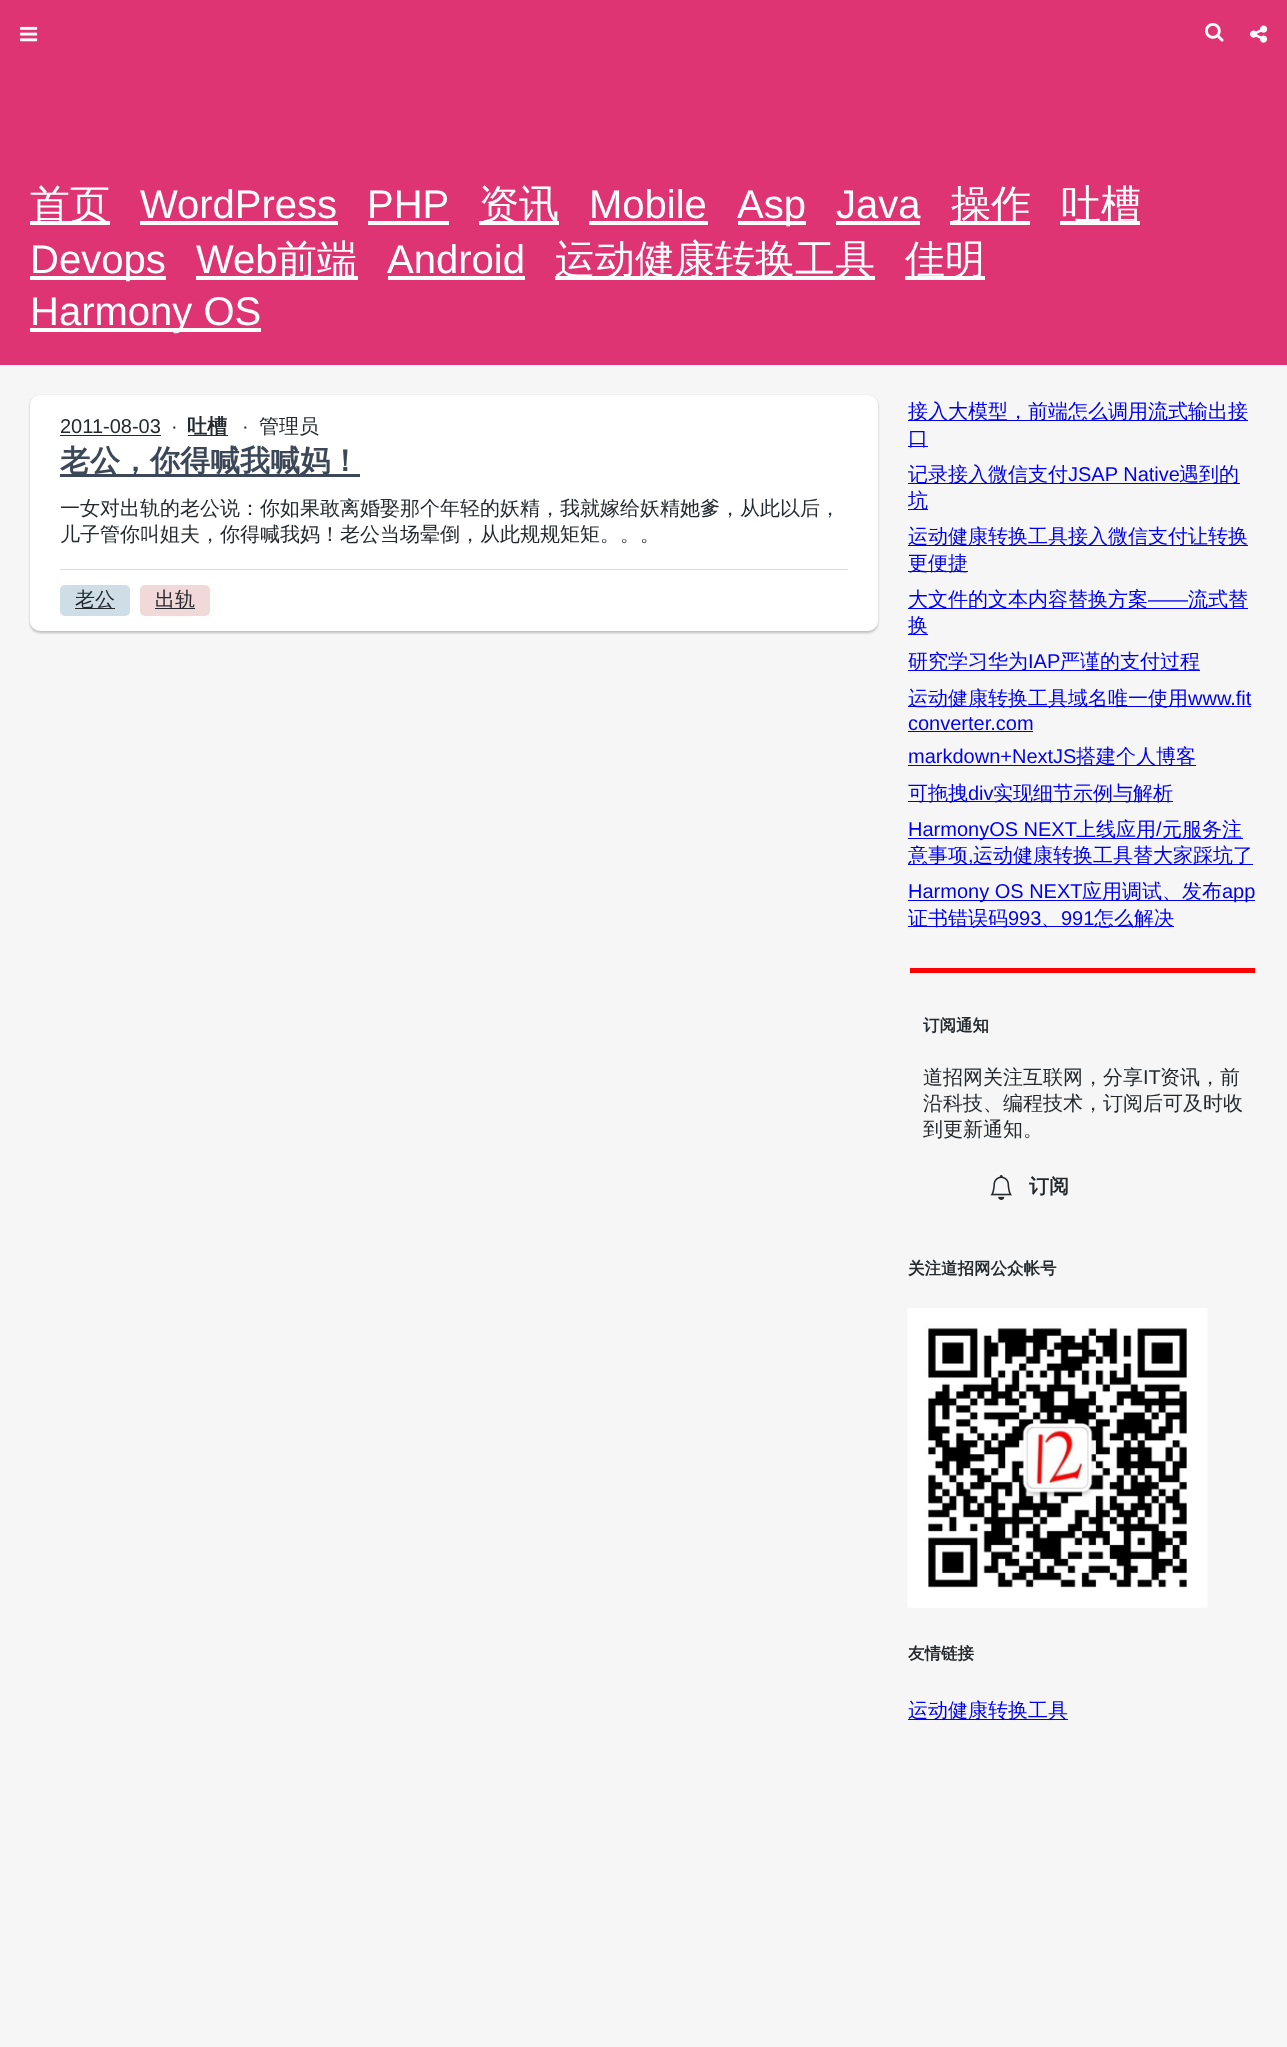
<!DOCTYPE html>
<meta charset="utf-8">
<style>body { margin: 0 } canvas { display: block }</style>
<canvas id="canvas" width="1287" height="2047"></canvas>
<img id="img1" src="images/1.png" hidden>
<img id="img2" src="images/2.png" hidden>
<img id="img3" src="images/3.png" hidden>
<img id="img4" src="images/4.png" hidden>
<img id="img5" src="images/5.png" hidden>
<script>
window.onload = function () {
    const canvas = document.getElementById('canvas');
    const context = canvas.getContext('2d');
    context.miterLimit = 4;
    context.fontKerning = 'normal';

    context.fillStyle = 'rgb(246, 246, 246)';
    context.fillRect(0, 0, 1287, 2047);
    context.fillStyle = 'rgb(223, 52, 115)';
    context.fillRect(0, 0, 1287, 365);
    context.drawImage(document.getElementById('img1'), 20, 26, 18, 16);
    context.drawImage(document.getElementById('img2'), 1205, 23, 19, 19);
    context.drawImage(document.getElementById('img3'), 1250, 25, 18, 18);
    context.fillStyle = 'rgb(255, 255, 255)';
    context.fillRect(30, 221, 80, 4);
    context.fillRect(140, 221, 198, 4);
    context.fillRect(368, 221, 81, 4);
    context.fillRect(479, 221, 80, 4);
    context.fillRect(589, 221, 119, 4);
    context.fillRect(738, 221, 68, 4);
    context.fillRect(836, 221, 84, 4);
    context.fillRect(950, 221, 80, 4);
    context.fillRect(1060, 221, 80, 4);
    context.fillRect(30, 276, 136, 4);
    context.fillRect(196, 276, 162, 4);
    context.fillRect(388, 276, 137, 4);
    context.fillRect(555, 276, 320, 4);
    context.fillRect(905, 276, 80, 4);
    context.fillRect(30, 328, 231, 4);
    context.fillStyle = 'rgba(151, 151, 151, 0.58)';
    context.filter = 'blur(1px)';
    context.beginPath();
    context.roundRect(30, 396, 848, 237, 10);
    context.fill();
    context.filter = 'none';
    context.fillStyle = 'rgb(255, 255, 255)';
    context.beginPath();
    context.roundRect(30, 395, 848, 236, 10);
    context.fill();
    context.fillStyle = 'rgb(36, 41, 46)';
    context.fillRect(60, 435, 101, 1);
    context.fillRect(188, 435, 40, 1);
    context.fillStyle = 'rgb(60, 72, 88)';
    context.fillRect(60, 474, 300, 3);
    context.fillStyle = 'rgb(221, 221, 221)';
    context.fillRect(60, 569, 788, 1);
    context.fillStyle = 'rgb(206, 221, 230)';
    context.beginPath();
    context.roundRect(60, 585, 70, 31, 5);
    context.fill();
    context.fillStyle = 'rgb(36, 41, 46)';
    context.fillRect(75, 608, 40, 1);
    context.fillStyle = 'rgb(241, 217, 217)';
    context.beginPath();
    context.roundRect(140, 585, 70, 31, 5);
    context.fill();
    context.fillStyle = 'rgb(36, 41, 46)';
    context.fillRect(155, 608, 40, 1);
    context.fillStyle = 'rgb(0, 0, 238)';
    context.fillRect(908, 420, 340, 1);
    context.fillRect(908, 446, 20, 1);
    context.fillRect(908, 483, 332, 1);
    context.fillRect(908, 509, 20, 1);
    context.fillRect(908, 545, 340, 1);
    context.fillRect(908, 571, 60, 1);
    context.fillRect(908, 608, 340, 1);
    context.fillRect(908, 634, 20, 1);
    context.fillRect(908, 670, 292, 1);
    context.fillRect(908, 706, 343, 1);
    context.fillRect(908, 731, 125, 1);
    context.fillRect(908, 765, 288, 1);
    context.fillRect(908, 801, 265, 1);
    context.fillRect(908, 838, 335, 1);
    context.fillRect(908, 864, 345, 1);
    context.fillRect(908, 900, 347, 1);
    context.fillRect(908, 926, 266, 1);
    context.fillStyle = 'rgb(255, 0, 0)';
    context.fillRect(910, 968, 345, 5);
    context.drawImage(document.getElementById('img4'), 990, 1175, 22, 25);
    context.drawImage(document.getElementById('img5'), 907, 1308, 301, 300);
    context.fillStyle = 'rgb(0, 0, 238)';
    context.fillRect(908, 1719, 160, 1);
    context.font = '500 40px WenQuanYi Zen Hei';
    context.fillStyle = 'rgb(255, 255, 255)';
    context.fillText('首页', 30, 218);
    context.font = '40px Liberation Sans';
    context.fillText('WordPress', 140, 218);
    context.fillText('PHP', 367, 218);
    context.font = '500 40px WenQuanYi Zen Hei';
    context.fillText('资讯', 479, 218);
    context.font = '40px Liberation Sans';
    context.fillText('Mobile', 589, 218);
    context.fillText('Asp', 737, 218);
    context.fillText('Java', 836, 218);
    context.font = '500 40px WenQuanYi Zen Hei';
    context.fillText('操作', 951, 218);
    context.fillText('吐槽', 1061, 218);
    context.font = '40px Liberation Sans';
    context.fillText('Devops', 30, 273);
    context.fillText('Web', 196, 273);
    context.font = '500 40px WenQuanYi Zen Hei';
    context.fillText('前端', 277, 273);
    context.font = '40px Liberation Sans';
    context.fillText('Android', 387, 273);
    context.font = '500 40px WenQuanYi Zen Hei';
    context.fillText('运动健康转换工具', 555, 273);
    context.fillText('佳明', 905, 273);
    context.font = '40px Liberation Sans';
    context.fillText('Harmony OS', 30, 325);
    context.font = '20px Liberation Sans';
    context.fillStyle = 'rgb(36, 41, 46)';
    context.fillText('2011-08-03', 60, 433);
    context.fillText('·', 171, 433);
    context.font = 'bold 20px WenQuanYi Zen Hei';
    context.fillText('吐槽', 187, 433);
    context.font = '20px Liberation Sans';
    context.fillText('·', 242, 433);
    context.font = '500 20px WenQuanYi Zen Hei';
    context.fillText('管理员', 259, 433);
    context.font = 'bold 30px WenQuanYi Zen Hei';
    context.fillStyle = 'rgb(60, 72, 88)';
    context.fillText('老公，你得喊我喊妈！', 60, 471);
    context.font = '500 20px WenQuanYi Zen Hei';
    context.fillStyle = 'rgb(36, 41, 46)';
    context.fillText('一女对出轨的老公说：你如果敢离婚娶那个年轻的妖精，我就嫁给妖精她爹，从此以后，', 60, 515);
    context.fillText('儿子管你叫姐夫，你得喊我妈！老公当场晕倒，从此规规矩矩。。。', 60, 541);
    context.fillText('老公', 75, 606);
    context.fillText('出轨', 155, 606);
    context.fillStyle = 'rgb(0, 0, 238)';
    context.fillText('接入大模型，前端怎么调用流式输出接', 908, 418);
    context.fillText('口', 908, 445);
    context.fillText('记录接入微信支付', 908, 481);
    context.font = '20px Liberation Sans';
    context.fillText('JSAP Native', 1068, 481);
    context.font = '500 20px WenQuanYi Zen Hei';
    context.fillText('遇到的', 1179, 481);
    context.fillText('坑', 908, 507);
    context.fillText('运动健康转换工具接入微信支付让转换', 908, 543);
    context.fillText('更便捷', 908, 570);
    context.fillText('大文件的文本内容替换方案', 908, 606);
    context.font = '20px Liberation Sans';
    context.fillText('——', 1148, 606);
    context.font = '500 20px WenQuanYi Zen Hei';
    context.fillText('流式替', 1188, 606);
    context.fillText('换', 908, 632);
    context.fillText('研究学习华为', 908, 668);
    context.font = '20px Liberation Sans';
    context.fillText('IAP', 1028, 668);
    context.font = '500 20px WenQuanYi Zen Hei';
    context.fillText('严谨的支付过程', 1060, 668);
    context.fillText('运动健康转换工具域名唯一使用', 908, 705);
    context.font = '20px Liberation Sans';
    context.fillText('www.fit', 1188, 705);
    context.fillText('converter.com', 908, 730);
    context.fillText('markdown+NextJS', 908, 763);
    context.font = '500 20px WenQuanYi Zen Hei';
    context.fillText('搭建个人博客', 1076, 763);
    context.fillText('可拖拽', 908, 800);
    context.font = '20px Liberation Sans';
    context.fillText('div', 968, 800);
    context.font = '500 20px WenQuanYi Zen Hei';
    context.fillText('实现细节示例与解析', 993, 800);
    context.font = '20px Liberation Sans';
    context.fillText('HarmonyOS NEXT', 908, 836);
    context.font = '500 20px WenQuanYi Zen Hei';
    context.fillText('上线应用', 1076, 836);
    context.font = '20px Liberation Sans';
    context.fillText('/', 1156, 836);
    context.font = '500 20px WenQuanYi Zen Hei';
    context.fillText('元服务注', 1162, 836);
    context.fillText('意事项', 908, 862);
    context.font = '20px Liberation Sans';
    context.fillText(',', 968, 862);
    context.font = '500 20px WenQuanYi Zen Hei';
    context.fillText('运动健康转换工具替大家踩坑了', 973, 862);
    context.font = '20px Liberation Sans';
    context.fillText('Harmony OS NEXT', 908, 898);
    context.font = '500 20px WenQuanYi Zen Hei';
    context.fillText('应用调试、发布', 1082, 898);
    context.font = '20px Liberation Sans';
    context.fillText('app', 1222, 898);
    context.font = '500 20px WenQuanYi Zen Hei';
    context.fillText('证书错误码', 908, 925);
    context.font = '20px Liberation Sans';
    context.fillText('993', 1008, 925);
    context.font = '500 20px WenQuanYi Zen Hei';
    context.fillText('、', 1041, 925);
    context.font = '20px Liberation Sans';
    context.fillText('991', 1061, 925);
    context.font = '500 20px WenQuanYi Zen Hei';
    context.fillText('怎么解决', 1094, 925);
    context.font = 'bold 16.5px WenQuanYi Zen Hei';
    context.fillStyle = 'rgb(36, 41, 46)';
    context.fillText('订阅通知', 923, 1031);
    context.font = '500 20px WenQuanYi Zen Hei';
    context.fillText('道招网关注互联网，分享', 923, 1084);
    context.font = '20px Liberation Sans';
    context.fillText('IT', 1143, 1084);
    context.font = '500 20px WenQuanYi Zen Hei';
    context.fillText('资讯，前', 1160, 1084);
    context.fillText('沿科技、编程技术，订阅后可及时收', 923, 1110);
    context.fillText('到更新通知。', 923, 1136);
    context.font = 'bold 20px WenQuanYi Zen Hei';
    context.fillText('订阅', 1029, 1193);
    context.font = 'bold 16.5px WenQuanYi Zen Hei';
    context.fillText('关注道招网公众帐号', 908, 1274);
    context.fillText('友情链接', 908, 1659);
    context.font = '500 20px WenQuanYi Zen Hei';
    context.fillStyle = 'rgb(0, 0, 238)';
    context.fillText('运动健康转换工具', 908, 1717);
};
</script>
